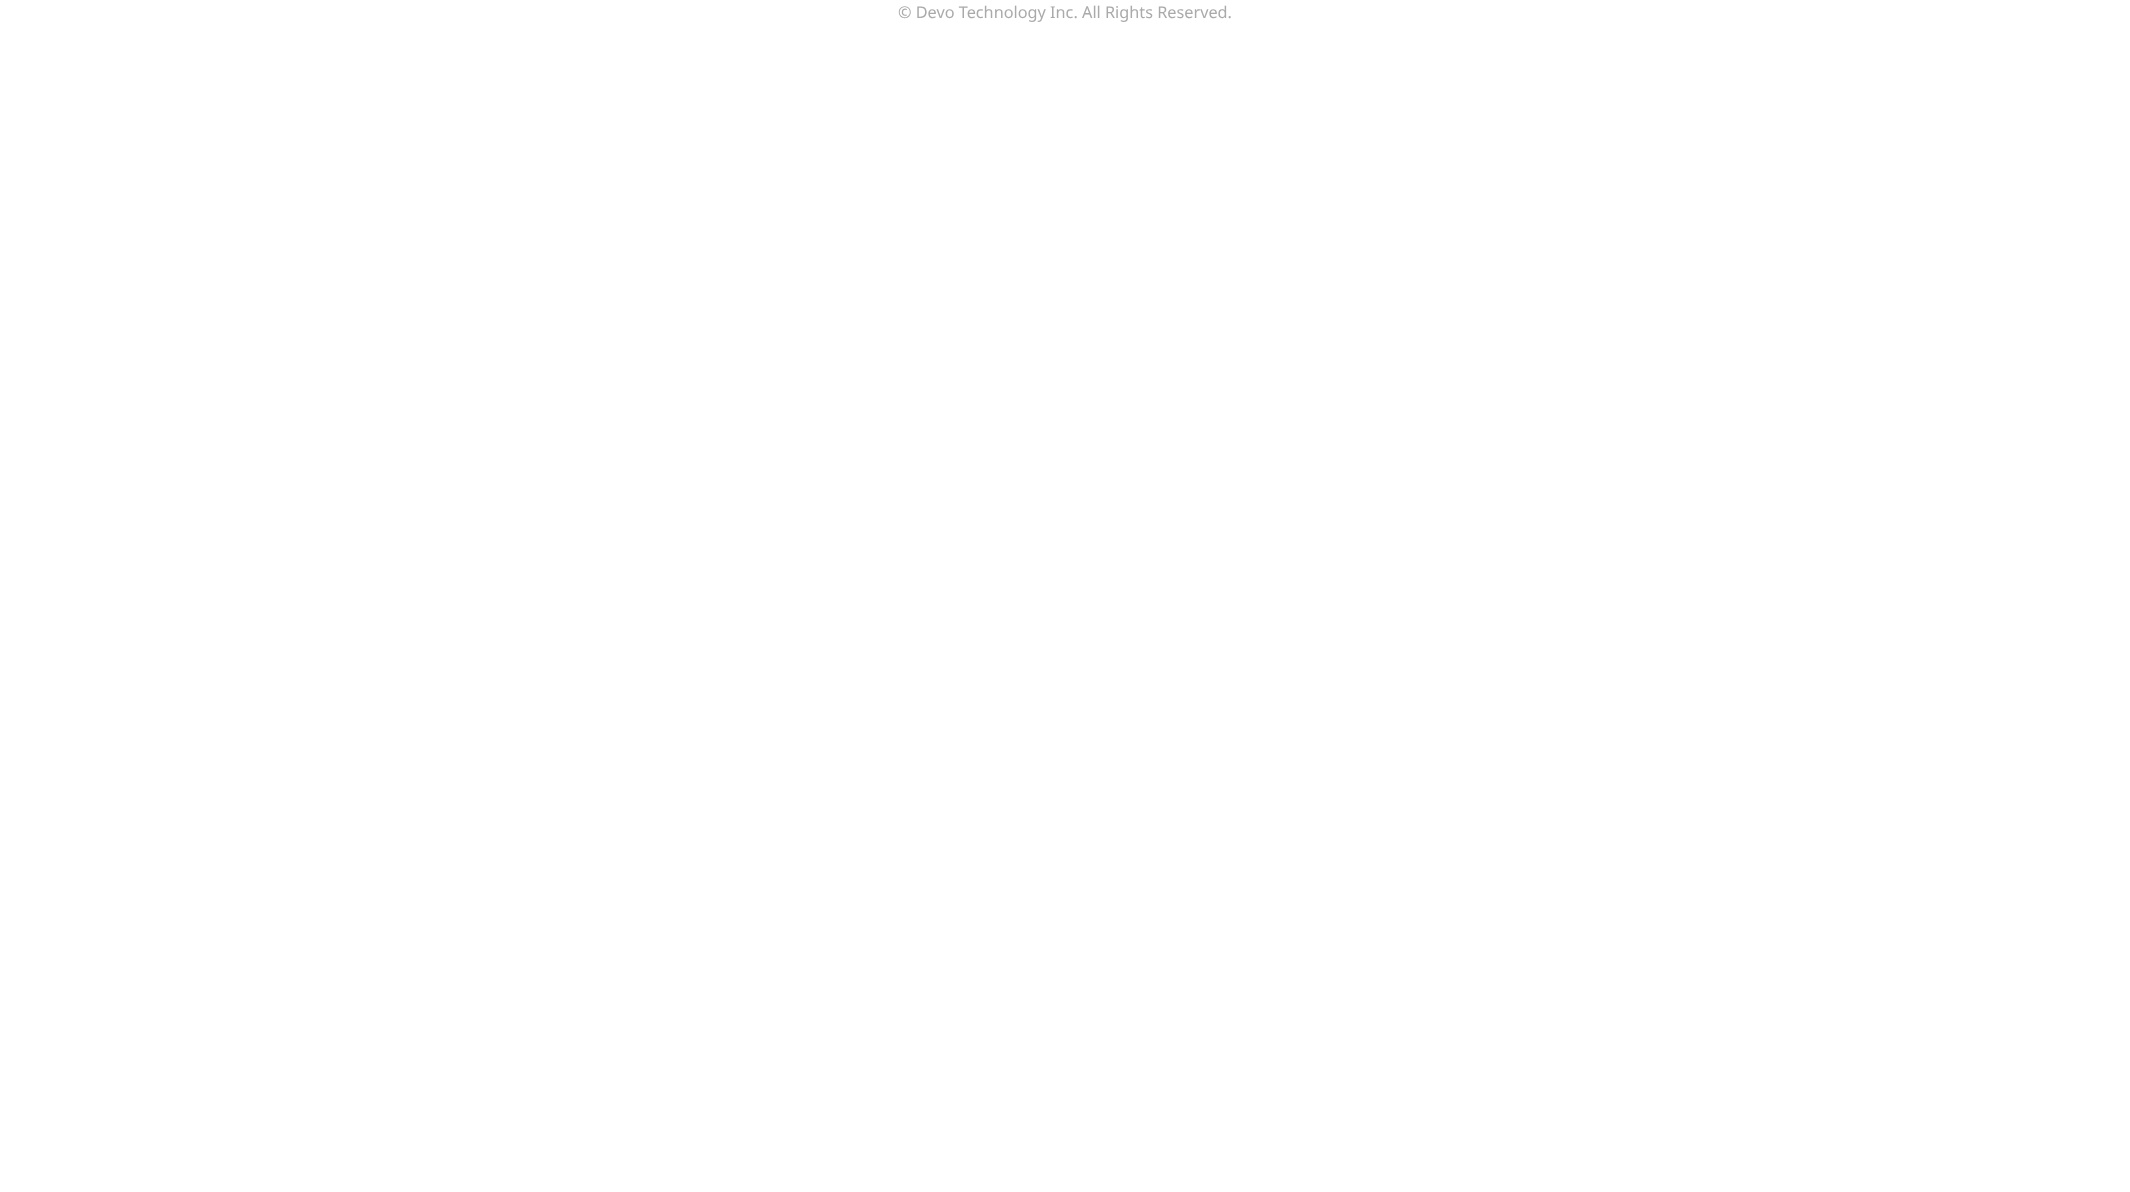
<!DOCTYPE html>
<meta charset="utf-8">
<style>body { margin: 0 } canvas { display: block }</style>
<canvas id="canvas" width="2130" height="1192"></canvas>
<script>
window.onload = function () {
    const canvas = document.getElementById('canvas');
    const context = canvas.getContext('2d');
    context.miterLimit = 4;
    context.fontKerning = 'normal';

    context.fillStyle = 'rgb(255, 255, 255)';
    context.fillRect(0, 0, 2130, 1192);
    context.font = '16.25px Noto Sans';
    context.fillStyle = 'rgb(170, 170, 170)';
    context.fillText('© Devo Technology Inc. All Rights Reserved.', 898, 18);
};
</script>
